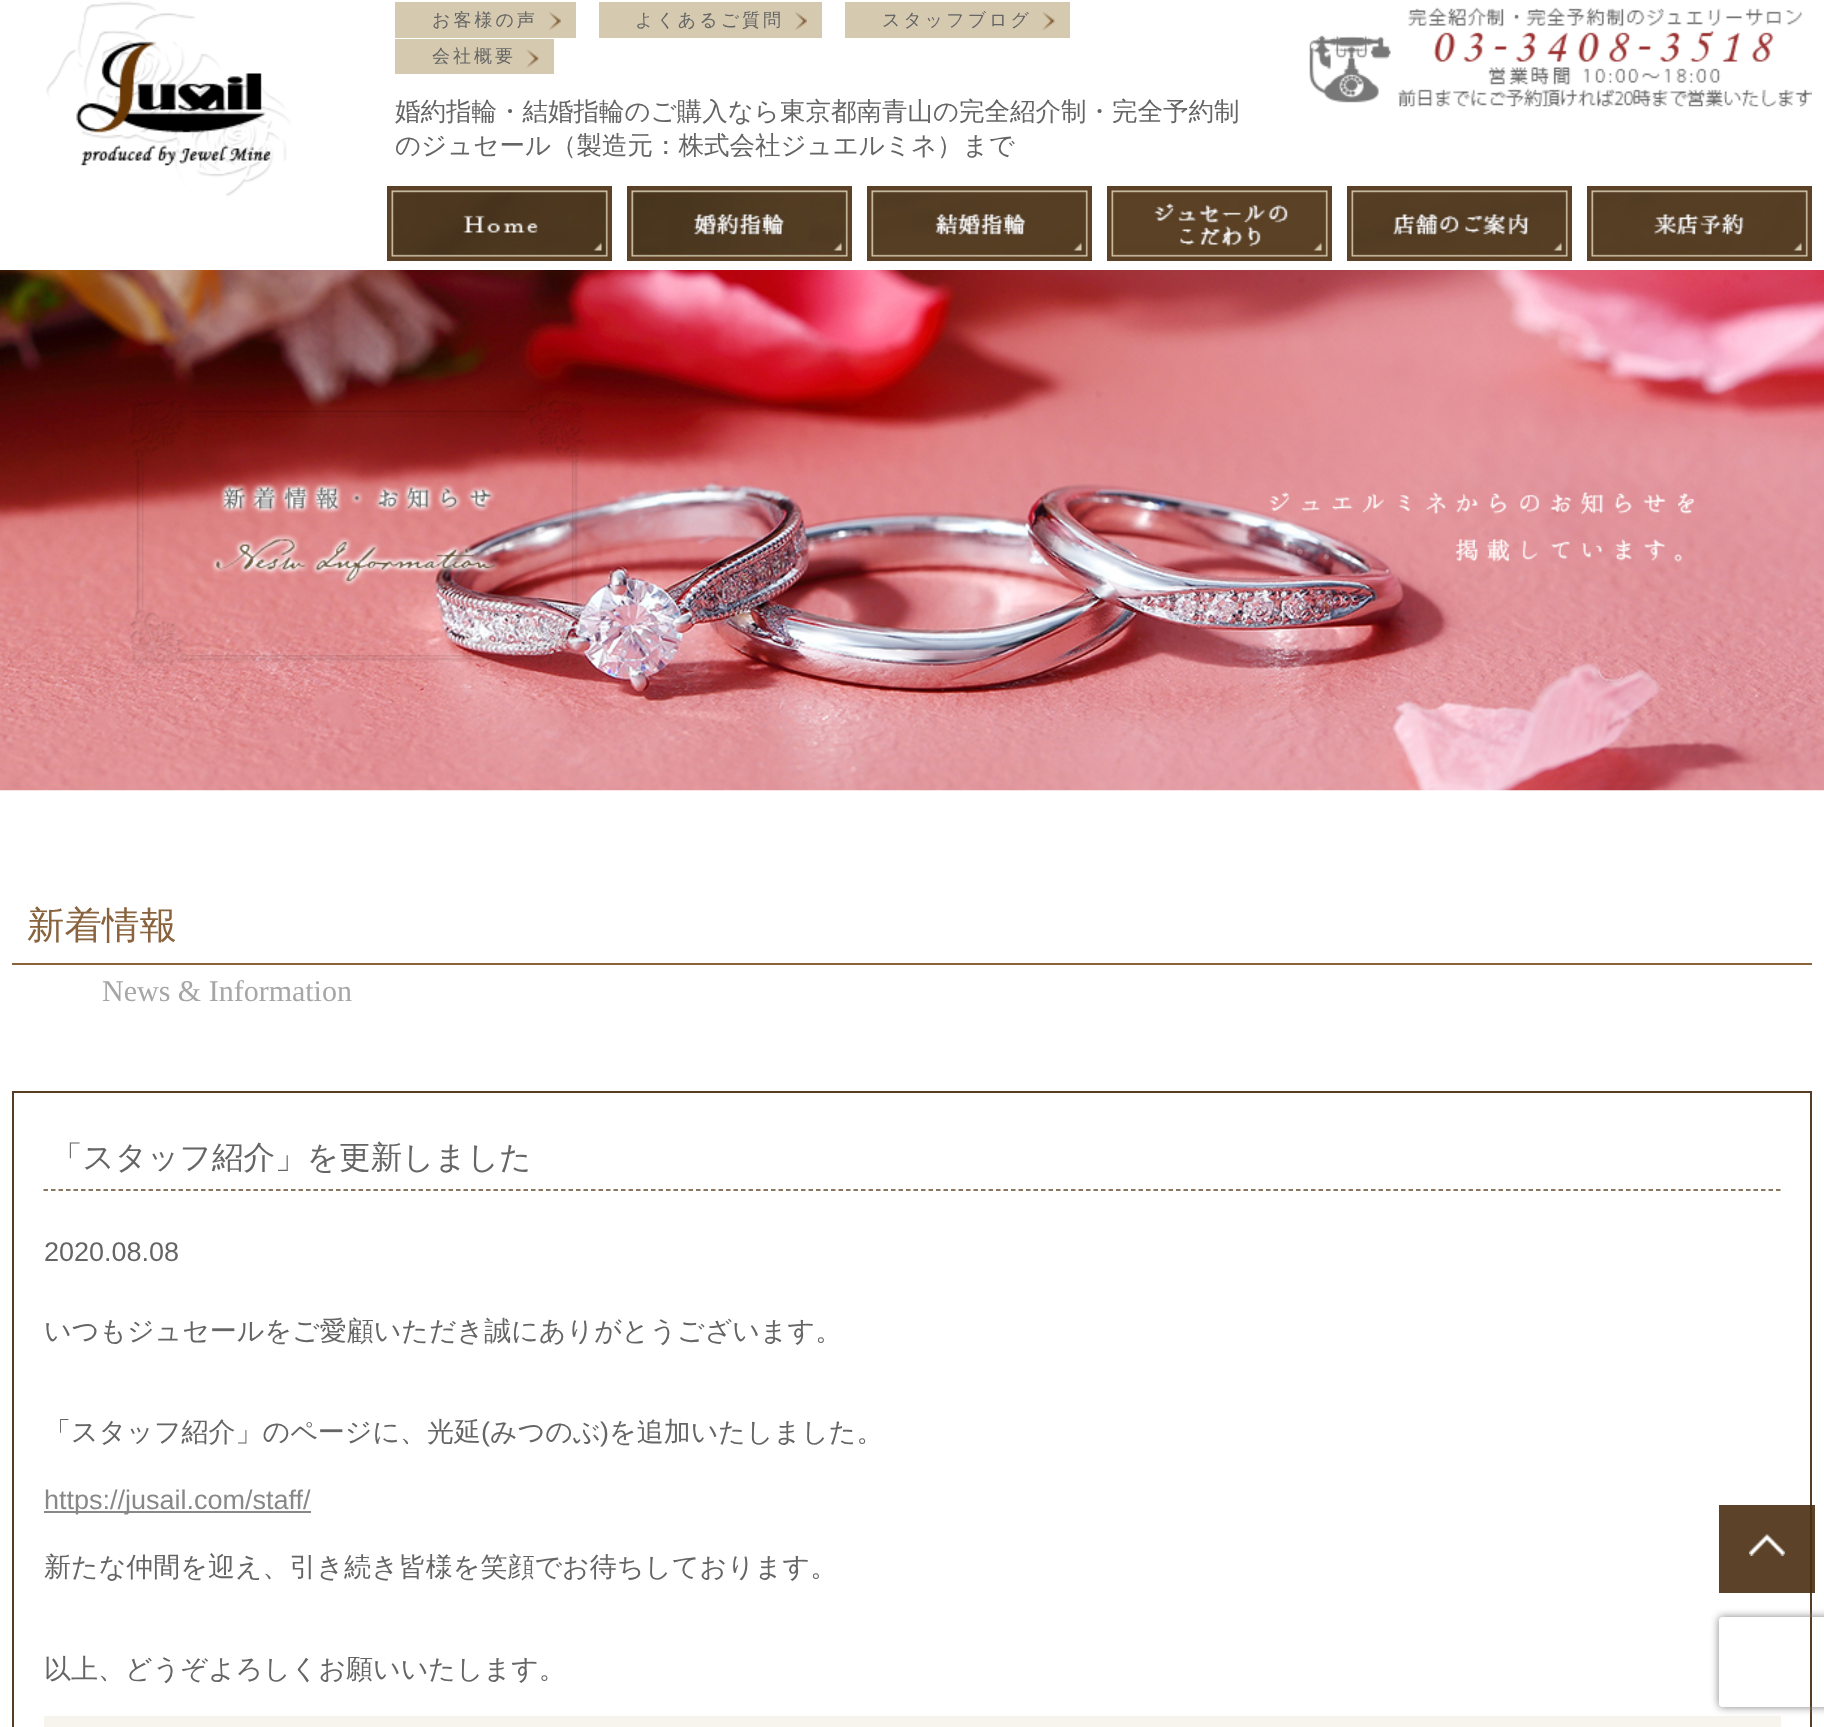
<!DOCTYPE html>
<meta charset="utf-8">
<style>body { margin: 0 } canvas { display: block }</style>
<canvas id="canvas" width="1824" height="1727"></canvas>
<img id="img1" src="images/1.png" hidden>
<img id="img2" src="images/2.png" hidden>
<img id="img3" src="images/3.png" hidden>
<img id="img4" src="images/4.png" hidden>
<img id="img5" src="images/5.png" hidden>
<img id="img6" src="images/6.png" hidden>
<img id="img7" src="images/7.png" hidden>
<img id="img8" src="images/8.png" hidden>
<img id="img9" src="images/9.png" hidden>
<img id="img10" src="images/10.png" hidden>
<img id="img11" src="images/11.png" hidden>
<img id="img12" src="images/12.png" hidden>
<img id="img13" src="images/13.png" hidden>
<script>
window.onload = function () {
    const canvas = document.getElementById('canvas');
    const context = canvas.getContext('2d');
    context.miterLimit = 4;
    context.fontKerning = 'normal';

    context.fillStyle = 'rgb(255, 255, 255)';
    context.fillRect(0, 0, 1824, 1727);
    context.drawImage(document.getElementById('img1'), 46, 1, 245, 196);
    context.fillStyle = 'rgb(213, 201, 175)';
    context.fillRect(395, 2, 181, 36);
    context.drawImage(document.getElementById('img2'), 549, 12, 12, 18);
    context.fillRect(599, 2, 223, 36);
    context.drawImage(document.getElementById('img2'), 795, 12, 12, 18);
    context.fillRect(845, 2, 225, 36);
    context.drawImage(document.getElementById('img3'), 1042, 12, 13, 18);
    context.fillRect(395, 39, 159, 35);
    context.drawImage(document.getElementById('img4'), 526, 49, 13, 19);
    context.drawImage(document.getElementById('img5'), 1309, 7, 503, 100);
    context.drawImage(document.getElementById('img6'), 387, 186, 225, 75);
    context.drawImage(document.getElementById('img7'), 627, 186, 225, 75);
    context.drawImage(document.getElementById('img8'), 867, 186, 225, 75);
    context.drawImage(document.getElementById('img9'), 1107, 186, 225, 75);
    context.drawImage(document.getElementById('img10'), 1347, 186, 225, 75);
    context.drawImage(document.getElementById('img11'), 1587, 186, 225, 75);
    context.drawImage(document.getElementById('img12'), 0, 270, 1824, 521);
    context.fillStyle = 'rgb(138, 99, 61)';
    context.fillRect(12, 963, 1800, 2);
    context.strokeStyle = 'rgb(86, 62, 36)';
    context.lineWidth = 2;
    context.strokeRect(13, 1092, 1798, 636);
    context.beginPath();
    context.moveTo(43.5, 1190);
    context.lineTo(1780.5, 1190);
    context.strokeStyle = 'rgb(103, 73, 44)';
    context.lineWidth = 1.5;
    context.setLineDash([4.5, 3]);
    context.stroke();
    context.fillStyle = 'rgb(136, 136, 136)';
    context.fillRect(44, 1511, 267, 2);
    context.fillStyle = 'rgb(247, 244, 237)';
    context.fillRect(44, 1716, 1737, 11);
    context.fillStyle = 'rgba(73, 46, 17, 0.9)';
    context.fillRect(1719, 1505, 96, 88);
    context.drawImage(document.getElementById('img13'), 1749, 1534, 36, 22);
    context.save();
    context.beginPath();
    context.moveTo(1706, 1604);
    context.lineTo(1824, 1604);
    context.lineTo(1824, 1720);
    context.lineTo(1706, 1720);
    context.closePath();
    context.moveTo(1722, 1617);
    context.lineTo(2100, 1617);
    context.bezierCurveTo(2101.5, 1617, 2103, 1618.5, 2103, 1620);
    context.lineTo(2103, 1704);
    context.bezierCurveTo(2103, 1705.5, 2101.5, 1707, 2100, 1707);
    context.lineTo(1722, 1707);
    context.bezierCurveTo(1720.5, 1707, 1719, 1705.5, 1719, 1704);
    context.lineTo(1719, 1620);
    context.bezierCurveTo(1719, 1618.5, 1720.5, 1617, 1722, 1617);
    context.closePath();
    context.clip('evenodd');
    context.fillStyle = 'rgb(128, 128, 128)';
    context.filter = 'blur(4px)';
    context.beginPath();
    context.roundRect(1719, 1617, 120, 90, 3);
    context.fill();
    context.filter = 'none';
    context.restore();
    context.letterSpacing = '3px';
    context.font = '500 18px WenQuanYi Zen Hei';
    context.fillStyle = 'rgb(101, 101, 101)';
    context.fillText('お客様の声', 432, 26);
    context.fillText('よくあるご質問', 635, 26);
    context.fillText('スタッフブログ', 882, 26);
    context.fillText('会社概要', 432, 62);
    context.letterSpacing = '0px';
    context.font = '500 25.5px WenQuanYi Zen Hei';
    context.fillText('婚約指輪・結婚指輪のご購入なら東京都南青山の完全紹介制・完全予約制', 395, 120);
    context.fillText('のジュセール（製造元：株式会社ジュエルミネ）まで', 395, 154);
    context.font = '500 37.5px WenQuanYi Zen Hei';
    context.fillStyle = 'rgb(137, 99, 61)';
    context.fillText('新着情報', 27, 938);
    context.font = '30px Liberation Serif';
    context.fillStyle = 'rgb(166, 166, 166)';
    context.fillText('News & Information', 102, 1001);
    context.font = '500 31.6px WenQuanYi Zen Hei';
    context.fillStyle = 'rgb(101, 101, 101)';
    context.fillText('「スタッフ紹介」を更新しました', 51, 1168);
    context.font = '27px Liberation Sans';
    context.fillText('2020.08.08', 44, 1261);
    context.font = '500 27px WenQuanYi Zen Hei';
    context.fillText('いつもジュセールをご愛顧いただき誠にありがとうございます。', 44, 1340);
    context.fillText('「スタッフ紹介」のページに、光延', 44, 1441);
    context.font = '27px Liberation Sans';
    context.fillText('(', 481, 1441);
    context.font = '500 27px WenQuanYi Zen Hei';
    context.fillText('みつのぶ', 490, 1441);
    context.font = '27px Liberation Sans';
    context.fillText(')', 600, 1441);
    context.font = '500 27px WenQuanYi Zen Hei';
    context.fillText('を追加いたしました。', 609, 1441);
    context.font = '27px Liberation Sans';
    context.fillStyle = 'rgb(136, 136, 136)';
    context.fillText('https://jusail.com/staff/', 44, 1509);
    context.font = '500 27px WenQuanYi Zen Hei';
    context.fillStyle = 'rgb(101, 101, 101)';
    context.fillText('新たな仲間を迎え、引き続き皆様を笑顔でお待ちしております。', 44, 1576);
    context.fillText('以上、どうぞよろしくお願いいたします。', 44, 1678);
};
</script>
